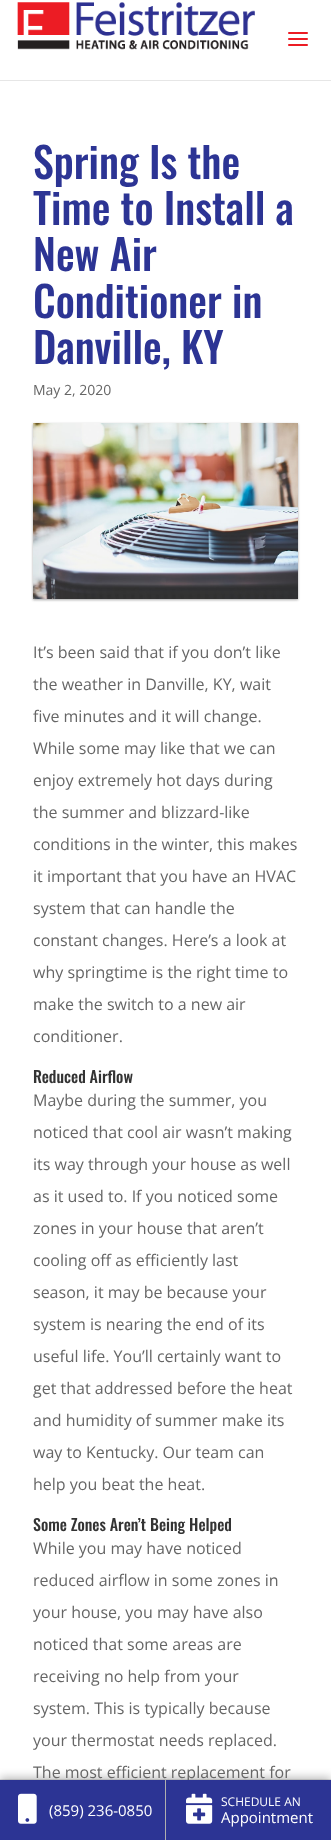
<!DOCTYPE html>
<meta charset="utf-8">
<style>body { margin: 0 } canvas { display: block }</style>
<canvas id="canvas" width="331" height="1840"></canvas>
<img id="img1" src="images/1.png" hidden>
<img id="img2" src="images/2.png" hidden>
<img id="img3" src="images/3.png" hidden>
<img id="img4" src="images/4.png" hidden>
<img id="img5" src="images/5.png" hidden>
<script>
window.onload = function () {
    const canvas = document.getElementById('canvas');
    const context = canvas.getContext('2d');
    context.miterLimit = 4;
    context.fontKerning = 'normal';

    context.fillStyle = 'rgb(255, 255, 255)';
    context.fillRect(0, 0, 331, 1840);
    context.fillStyle = 'rgb(230, 230, 230)';
    context.fillRect(0, 80, 331, 1);
    context.drawImage(document.getElementById('img1'), 17, 2, 238, 48);
    context.drawImage(document.getElementById('img2'), 288, 32, 20, 14);
    context.fillStyle = 'rgba(0, 0, 0, 0.12)';
    context.filter = 'blur(1.5px)';
    context.beginPath();
    context.rect(33, 424, 265, 176);
    context.fill();
    context.filter = 'none';
    context.fillStyle = 'rgba(0, 0, 0, 0.24)';
    context.filter = 'blur(1px)';
    context.beginPath();
    context.rect(33, 424, 265, 176);
    context.fill();
    context.filter = 'none';
    context.drawImage(document.getElementById('img3'), 33, 423, 265, 176);
    context.fillStyle = 'rgba(0, 0, 0, 0.25)';
    context.filter = 'blur(4px)';
    context.beginPath();
    context.rect(0, 1777, 331, 61);
    context.fill();
    context.filter = 'none';
    context.fillStyle = 'rgba(0, 0, 0, 0.1)';
    context.fillRect(0, 1779, 331, 1);
    context.font = '500 42px Oswald';
    context.fillStyle = 'rgb(44, 52, 148)';
    context.fillText('Spring Is the', 33, 179);
    context.fillText('Time to Install a', 33, 225);
    context.fillText('New Air', 33, 271);
    context.fillText('Conditioner in', 33, 318);
    context.fillText('Danville, KY', 33, 364);
    context.font = '14px Open Sans';
    context.fillStyle = 'rgb(102, 102, 102)';
    context.fillText('May 2, 2020', 33, 395);
    context.font = '16px Open Sans';
    context.fillText('It’s been said that if you don’t like', 33, 658);
    context.fillText('the weather in Danville, KY, wait', 33, 690);
    context.fillText('five minutes and it will change.', 33, 722);
    context.fillText('While some may like that we can', 33, 754);
    context.fillText('enjoy extremely hot days during', 33, 786);
    context.fillText('the summer and blizzard-like', 33, 818);
    context.fillText('conditions in the winter, this makes', 33, 850);
    context.fillText('it important that you have an HVAC', 33, 882);
    context.fillText('system that can handle the', 33, 914);
    context.fillText('constant changes. Here’s a look at', 33, 946);
    context.fillText('why springtime is the right time to', 33, 978);
    context.fillText('make the switch to a new air', 33, 1010);
    context.fillText('conditioner.', 33, 1042);
    context.font = '500 16px Oswald';
    context.fillStyle = 'rgb(51, 51, 51)';
    context.fillText('Reduced Airflow', 33, 1083);
    context.font = '16px Open Sans';
    context.fillStyle = 'rgb(102, 102, 102)';
    context.fillText('Maybe during the summer, you', 33, 1106);
    context.fillText('noticed that cool air wasn’t making', 33, 1138);
    context.fillText('its way through your house as well', 33, 1170);
    context.fillText('as it used to. If you noticed some', 33, 1202);
    context.fillText('zones in your house that aren’t', 33, 1234);
    context.fillText('cooling off as efficiently last', 33, 1266);
    context.fillText('season, it may be because your', 33, 1298);
    context.fillText('system is nearing the end of its', 33, 1330);
    context.fillText('useful life. You’ll certainly want to', 33, 1362);
    context.fillText('get that addressed before the heat', 33, 1394);
    context.fillText('and humidity of summer make its', 33, 1426);
    context.fillText('way to Kentucky. Our team can', 33, 1458);
    context.fillText('help you beat the heat.', 33, 1490);
    context.font = '500 16px Oswald';
    context.fillStyle = 'rgb(51, 51, 51)';
    context.fillText('Some Zones Aren’t Being Helped', 33, 1531);
    context.font = '16px Open Sans';
    context.fillStyle = 'rgb(102, 102, 102)';
    context.fillText('While you may have noticed', 33, 1554);
    context.fillText('reduced airflow in some zones in', 33, 1586);
    context.fillText('your house, you may have also', 33, 1618);
    context.fillText('noticed that some areas are', 33, 1650);
    context.fillText('receiving no help from your', 33, 1682);
    context.fillText('system. This is typically because', 33, 1714);
    context.fillText('your thermostat needs replaced.', 33, 1746);
    context.fillText('The most efficient replacement for', 33, 1778);
    context.fillStyle = 'rgb(44, 52, 148)';
    context.fillRect(0, 1780, 165, 60);
    context.fillStyle = 'rgb(175, 175, 175)';
    context.fillRect(165, 1780, 1, 60);
    context.drawImage(document.getElementById('img4'), 18, 1793, 19, 31);
    context.font = '15px Open Sans';
    context.fillStyle = 'rgb(255, 255, 255)';
    context.fillText('(859) 236-0850', 49, 1816);
    context.fillStyle = 'rgb(44, 52, 148)';
    context.fillRect(166, 1780, 165, 60);
    context.drawImage(document.getElementById('img5'), 186, 1793, 27, 31);
    context.font = '12px Open Sans';
    context.fillStyle = 'rgb(255, 255, 255)';
    context.fillText('SCHEDULE AN', 221, 1806);
    context.font = '15px Open Sans';
    context.fillText('Appointment', 221, 1823);
};
</script>
